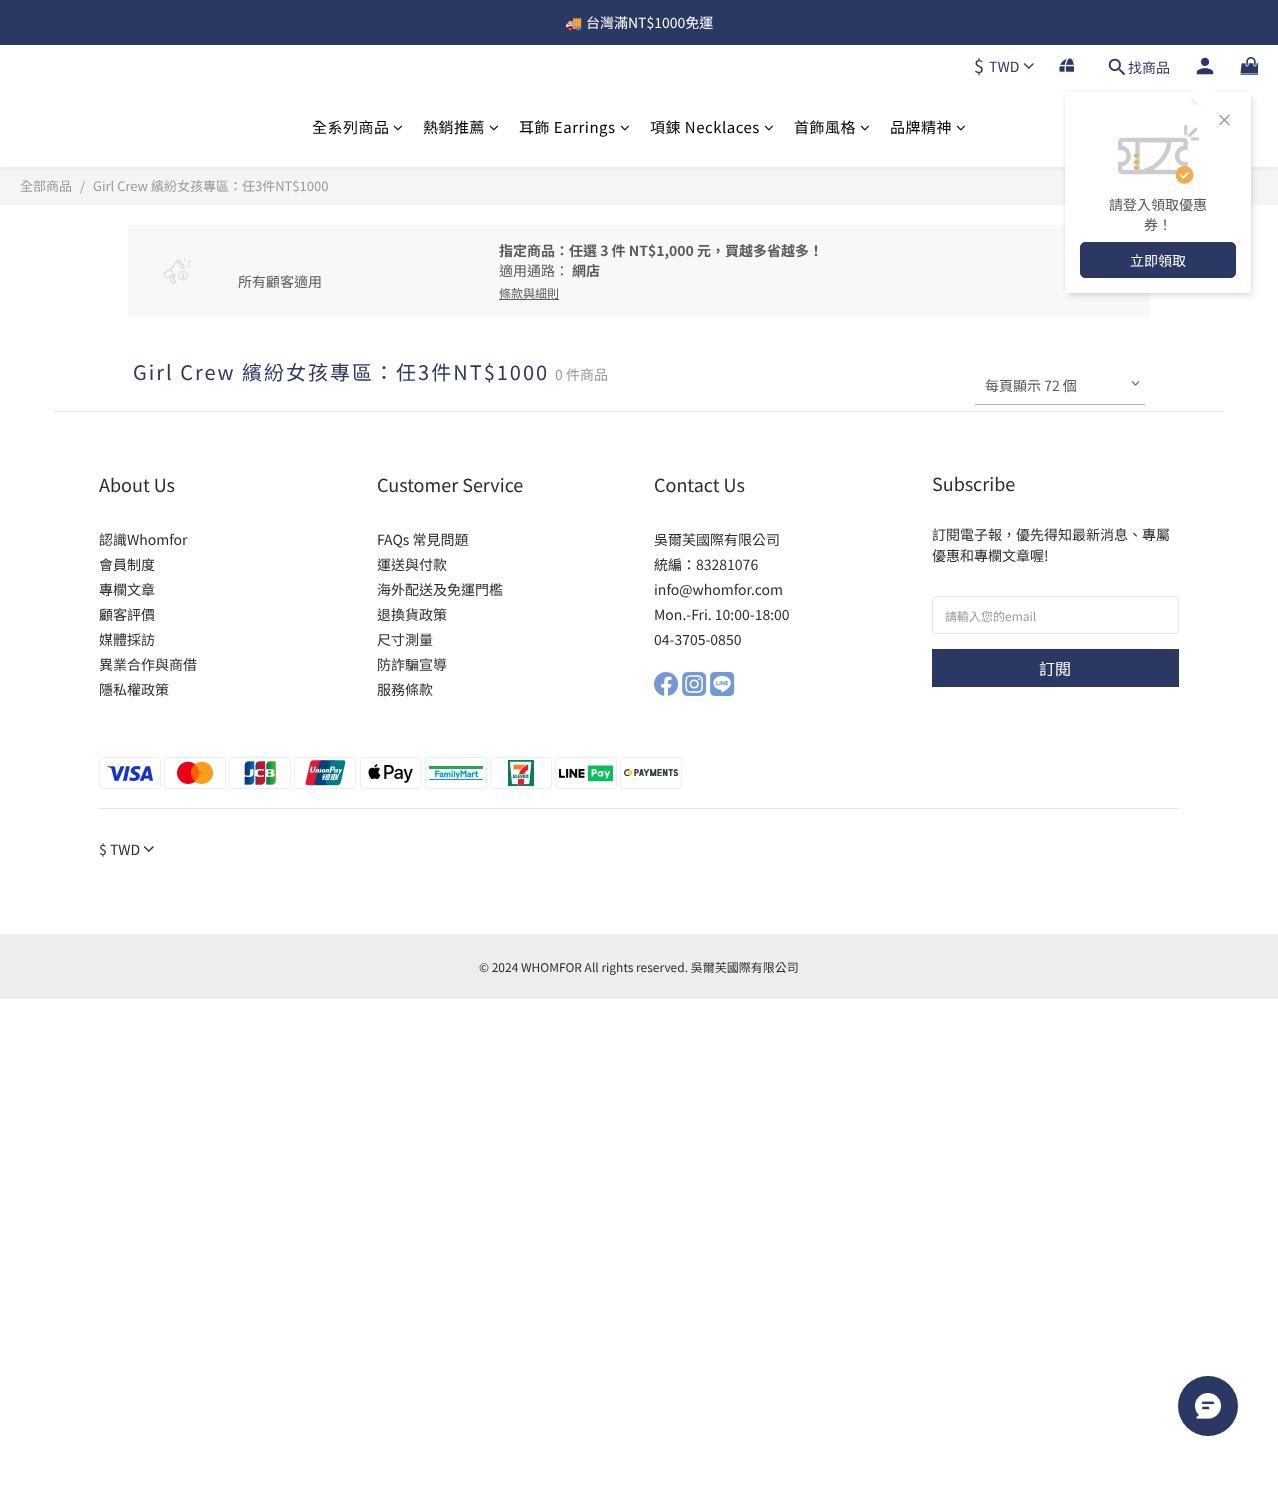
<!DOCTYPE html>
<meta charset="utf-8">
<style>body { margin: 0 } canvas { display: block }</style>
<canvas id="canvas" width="1278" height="1492"></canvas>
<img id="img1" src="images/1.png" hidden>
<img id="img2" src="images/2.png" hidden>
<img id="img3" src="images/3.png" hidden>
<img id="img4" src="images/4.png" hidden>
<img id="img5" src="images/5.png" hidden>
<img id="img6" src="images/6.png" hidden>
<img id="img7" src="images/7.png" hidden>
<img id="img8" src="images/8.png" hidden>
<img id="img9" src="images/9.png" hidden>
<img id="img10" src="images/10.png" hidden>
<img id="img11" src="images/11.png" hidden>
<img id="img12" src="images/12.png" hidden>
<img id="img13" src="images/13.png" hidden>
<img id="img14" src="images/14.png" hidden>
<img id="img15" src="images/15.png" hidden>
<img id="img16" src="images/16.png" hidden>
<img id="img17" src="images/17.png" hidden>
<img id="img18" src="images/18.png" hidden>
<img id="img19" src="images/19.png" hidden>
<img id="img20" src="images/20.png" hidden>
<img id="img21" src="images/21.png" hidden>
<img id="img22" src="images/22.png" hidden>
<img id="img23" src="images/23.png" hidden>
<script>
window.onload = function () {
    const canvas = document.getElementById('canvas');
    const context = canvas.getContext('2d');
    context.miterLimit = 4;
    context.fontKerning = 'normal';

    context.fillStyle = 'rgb(255, 255, 255)';
    context.fillRect(0, 0, 1278, 1492);
    context.fillStyle = 'rgb(43, 56, 100)';
    context.fillRect(0, 0, 1278, 45);
    context.fillStyle = 'rgb(245, 245, 245)';
    context.fillRect(0, 167, 1278, 38);
    context.save();
    context.beginPath();
    context.rect(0, 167, 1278, 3);
    context.clip();
    context.fillStyle = 'rgba(0, 0, 0, 0.06)';
    context.filter = 'blur(3px)';
    context.beginPath();
    context.rect(0, 47, 1278, 122);
    context.fill();
    context.filter = 'none';
    context.restore();
    context.drawImage(document.getElementById('img1'), 393, 125, 9, 6);
    context.drawImage(document.getElementById('img1'), 489, 125, 9, 6);
    context.drawImage(document.getElementById('img1'), 620, 125, 9, 6);
    context.drawImage(document.getElementById('img1'), 764, 125, 9, 6);
    context.drawImage(document.getElementById('img1'), 860, 125, 9, 6);
    context.drawImage(document.getElementById('img1'), 956, 125, 9, 6);
    context.drawImage(document.getElementById('img2'), 1023, 63, 11, 6);
    context.drawImage(document.getElementById('img3'), 1059, 58, 15, 14);
    context.drawImage(document.getElementById('img4'), 1108, 58, 18, 18);
    context.drawImage(document.getElementById('img5'), 1240, 57, 18, 18);
    context.drawImage(document.getElementById('img6'), 1196, 57, 18, 18);
    context.fillStyle = 'rgb(248, 248, 248)';
    context.fillRect(128, 225, 1022, 92);
    context.fillStyle = 'rgba(0, 0, 0, 0.06)';
    context.filter = 'blur(2px)';
    context.beginPath();
    context.rect(1065, 91, 184, 199);
    context.fill();
    context.filter = 'none';
    context.filter = 'blur(2px)';
    context.beginPath();
    context.rect(1066, 95, 184, 199);
    context.fill();
    context.filter = 'none';
    context.fillStyle = 'rgba(0, 0, 0, 0.1)';
    context.filter = 'blur(3px)';
    context.beginPath();
    context.rect(1069, 97, 184, 199);
    context.fill();
    context.filter = 'none';
    context.fillStyle = 'rgb(255, 255, 255)';
    context.fillRect(1065, 92, 186, 201);
    context.save();
    context.beginPath();
    context.moveTo(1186, 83);
    context.lineTo(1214, 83);
    context.lineTo(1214, 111);
    context.lineTo(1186, 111);
    context.closePath();
    context.moveTo(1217, 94);
    context.lineTo(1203, 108);
    context.lineTo(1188.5, 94);
    context.lineTo(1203, 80);
    context.closePath();
    context.clip('evenodd');
    context.fillStyle = 'rgba(0, 0, 0, 0.1)';
    context.filter = 'blur(2px)';
    context.beginPath();
    context.rect(1193, 90, 14, 14);
    context.fill();
    context.filter = 'none';
    context.restore();
    context.beginPath();
    context.moveTo(1188.5, 94);
    context.lineTo(1203, 80);
    context.lineTo(1203, 94);
    context.closePath();
    context.moveTo(1203, 80);
    context.lineTo(1217, 94);
    context.lineTo(1203, 94);
    context.closePath();
    context.fill();
    context.fillStyle = 'rgb(153, 153, 153)';
    context.beginPath();
    context.moveTo(1229, 114.5);
    context.lineTo(1230, 115.5);
    context.lineTo(1220, 125.5);
    context.lineTo(1219, 124.5);
    context.closePath();
    context.fill();
    context.beginPath();
    context.moveTo(1219, 115.5);
    context.lineTo(1220, 114.5);
    context.lineTo(1230, 124.5);
    context.lineTo(1229, 125.5);
    context.closePath();
    context.fill();
    context.drawImage(document.getElementById('img7'), 1118, 124, 81, 60);
    context.fillStyle = 'rgb(43, 56, 100)';
    context.beginPath();
    context.roundRect(1080.5, 242.5, 155, 35, 4.5);
    context.fill();
    context.strokeStyle = 'rgb(43, 56, 100)';
    context.stroke();
    context.drawImage(document.getElementById('img8'), 164, 258, 27, 26);
    context.fillStyle = 'rgb(91, 91, 91)';
    context.fillRect(499, 299, 60, 1);
    context.fillStyle = 'rgb(173, 173, 173)';
    context.fillRect(975, 404, 170, 1);
    context.drawImage(document.getElementById('img9'), 1131, 381, 9, 5);
    context.fillStyle = 'rgb(230, 230, 230)';
    context.fillRect(54, 411, 1170, 1);
    context.drawImage(document.getElementById('img10'), 654, 672, 25, 24);
    context.drawImage(document.getElementById('img11'), 682, 672, 24, 24);
    context.drawImage(document.getElementById('img12'), 710, 672, 25, 24);
    context.beginPath();
    context.roundRect(932.5, 596.5, 246, 37, 2.5);
    context.strokeStyle = 'rgb(230, 230, 230)';
    context.stroke();
    context.fillStyle = 'rgb(43, 56, 100)';
    context.fillRect(932, 649, 247, 38);
    context.drawImage(document.getElementById('img13'), 99, 757, 62, 32);
    context.drawImage(document.getElementById('img14'), 164, 757, 62, 32);
    context.drawImage(document.getElementById('img15'), 229, 757, 62, 32);
    context.drawImage(document.getElementById('img16'), 294, 757, 62, 32);
    context.drawImage(document.getElementById('img17'), 360, 757, 62, 32);
    context.drawImage(document.getElementById('img18'), 425, 757, 62, 32);
    context.drawImage(document.getElementById('img19'), 490, 757, 62, 32);
    context.drawImage(document.getElementById('img20'), 555, 757, 62, 32);
    context.drawImage(document.getElementById('img21'), 620, 757, 62, 32);
    context.fillStyle = 'rgb(230, 230, 230)';
    context.fillRect(99, 808, 1080, 1);
    context.drawImage(document.getElementById('img22'), 143, 846, 11, 6);
    context.fillStyle = 'rgb(237, 237, 237)';
    context.fillRect(0, 934, 1278, 65);
    context.fillStyle = 'rgb(43, 56, 100)';
    context.beginPath();
    context.arc(1208, 1406, 30, 0, 2 * Math.PI);
    context.fill();
    context.drawImage(document.getElementById('img23'), 1195, 1393, 26, 26);
    context.font = '14px Noto Color Emoji';
    context.fillStyle = 'rgb(255, 255, 255)';
    context.fillText('🚚', 565, 28);
    context.font = '14px Noto Sans TC';
    context.fillText('台灣滿NT$1000免運', 586, 28);
    context.letterSpacing = '0.5px';
    context.font = '15px Noto Sans TC';
    context.fillStyle = 'rgb(0, 0, 0)';
    context.fillText('全系列商品', 312, 133);
    context.fillText('熱銷推薦', 423, 133);
    context.fillText('耳飾 Earrings', 519, 133);
    context.fillText('項鍊 Necklaces', 650, 133);
    context.fillText('首飾風格', 794, 133);
    context.fillText('品牌精神', 890, 133);
    context.letterSpacing = '1px';
    context.font = '18px Noto Sans TC';
    context.fillStyle = 'rgb(43, 56, 100)';
    context.fillText('$', 974, 73);
    context.letterSpacing = '0px';
    context.font = '14px Noto Sans TC';
    context.fillText('TWD', 989, 72);
    context.fillText('找商品', 1128, 73);
    context.fillStyle = 'rgb(85, 85, 85)';
    context.fillText('請登入領取優惠', 1109, 210);
    context.fillText('券！', 1144, 230);
    context.fillStyle = 'rgb(255, 255, 255)';
    context.fillText('立即領取', 1130, 266);
    context.font = '13px Noto Sans TC';
    context.fillStyle = 'rgb(153, 153, 153)';
    context.fillText('全部商品', 20, 191);
    context.fillText('/', 80, 191);
    context.fillText('Girl Crew 繽紛女孩專區：任3件NT$1000', 93, 191);
    context.font = '14px Noto Sans TC';
    context.fillStyle = 'rgb(91, 91, 91)';
    context.fillText('所有顧客適用', 238, 287);
    context.font = 'bold 14px Noto Sans TC';
    context.fillText('指定商品：任選 3 件 NT$1,000 元，買越多省越多！', 499, 256);
    context.font = '14px Noto Sans TC';
    context.fillText('適用通路：', 499, 276);
    context.font = 'bold 14px Noto Sans TC';
    context.fillText('網店', 572, 276);
    context.font = '12px Noto Sans TC';
    context.fillText('條款與細則', 499, 298);
    context.letterSpacing = '2px';
    context.font = '20px Noto Sans TC';
    context.fillStyle = 'rgb(43, 56, 100)';
    context.fillText('Girl Crew 繽紛女孩專區：任3件NT$1000', 133, 380);
    context.letterSpacing = '0px';
    context.font = '14px Noto Sans TC';
    context.fillStyle = 'rgb(153, 153, 153)';
    context.fillText('0 件商品', 555, 380);
    context.fillStyle = 'rgb(85, 85, 85)';
    context.fillText('每頁顯示 72 個', 985, 391);
    context.font = '18px Noto Sans TC';
    context.fillStyle = 'rgb(44, 44, 44)';
    context.fillText('About Us', 99, 492);
    context.font = '14px Noto Sans TC';
    context.fillText('認識Whomfor', 99, 545);
    context.fillText('會員制度', 99, 570);
    context.fillText('專欄文章', 99, 595);
    context.fillText('顧客評價', 99, 620);
    context.fillText('媒體採訪', 99, 645);
    context.fillText('異業合作與商借', 99, 670);
    context.fillText('隱私權政策', 99, 695);
    context.font = '18px Noto Sans TC';
    context.fillText('Customer Service', 377, 492);
    context.font = '14px Noto Sans TC';
    context.fillText('FAQs 常見問題', 377, 545);
    context.fillText('運送與付款', 377, 570);
    context.fillText('海外配送及免運門檻', 377, 595);
    context.fillText('退換貨政策', 377, 620);
    context.fillText('尺寸測量', 377, 645);
    context.fillText('防詐騙宣導', 377, 670);
    context.fillText('服務條款', 377, 695);
    context.font = '18px Noto Sans TC';
    context.fillText('Contact Us', 654, 492);
    context.font = '14px Noto Sans TC';
    context.fillText('吳爾芙國際有限公司', 654, 545);
    context.fillText('統編：83281076', 654, 570);
    context.fillText('info@whomfor.com', 654, 595);
    context.fillText('Mon.-Fri. 10:00-18:00', 654, 620);
    context.fillText('04-3705-0850', 654, 645);
    context.font = '18px Noto Sans TC';
    context.fillText('Subscribe', 932, 491);
    context.font = '14px Noto Sans TC';
    context.fillText('訂閱電子報，優先得知最新消息、專屬', 932, 540);
    context.fillText('優惠和專欄文章喔!', 932, 561);
    context.font = '12px Noto Sans TC';
    context.fillStyle = 'rgb(153, 153, 153)';
    context.fillText('請輸入您的email', 945, 621);
    context.font = '16px Noto Sans TC';
    context.fillStyle = 'rgb(255, 255, 255)';
    context.fillText('訂閱', 1039, 675);
    context.font = '14px Noto Sans TC';
    context.fillStyle = 'rgb(44, 44, 44)';
    context.fillText('$ TWD', 99, 855);
    context.font = '12px Noto Sans TC';
    context.fillText('© 2024 WHOMFOR All rights reserved. 吳爾芙國際有限公司', 479, 972);
};
</script>
